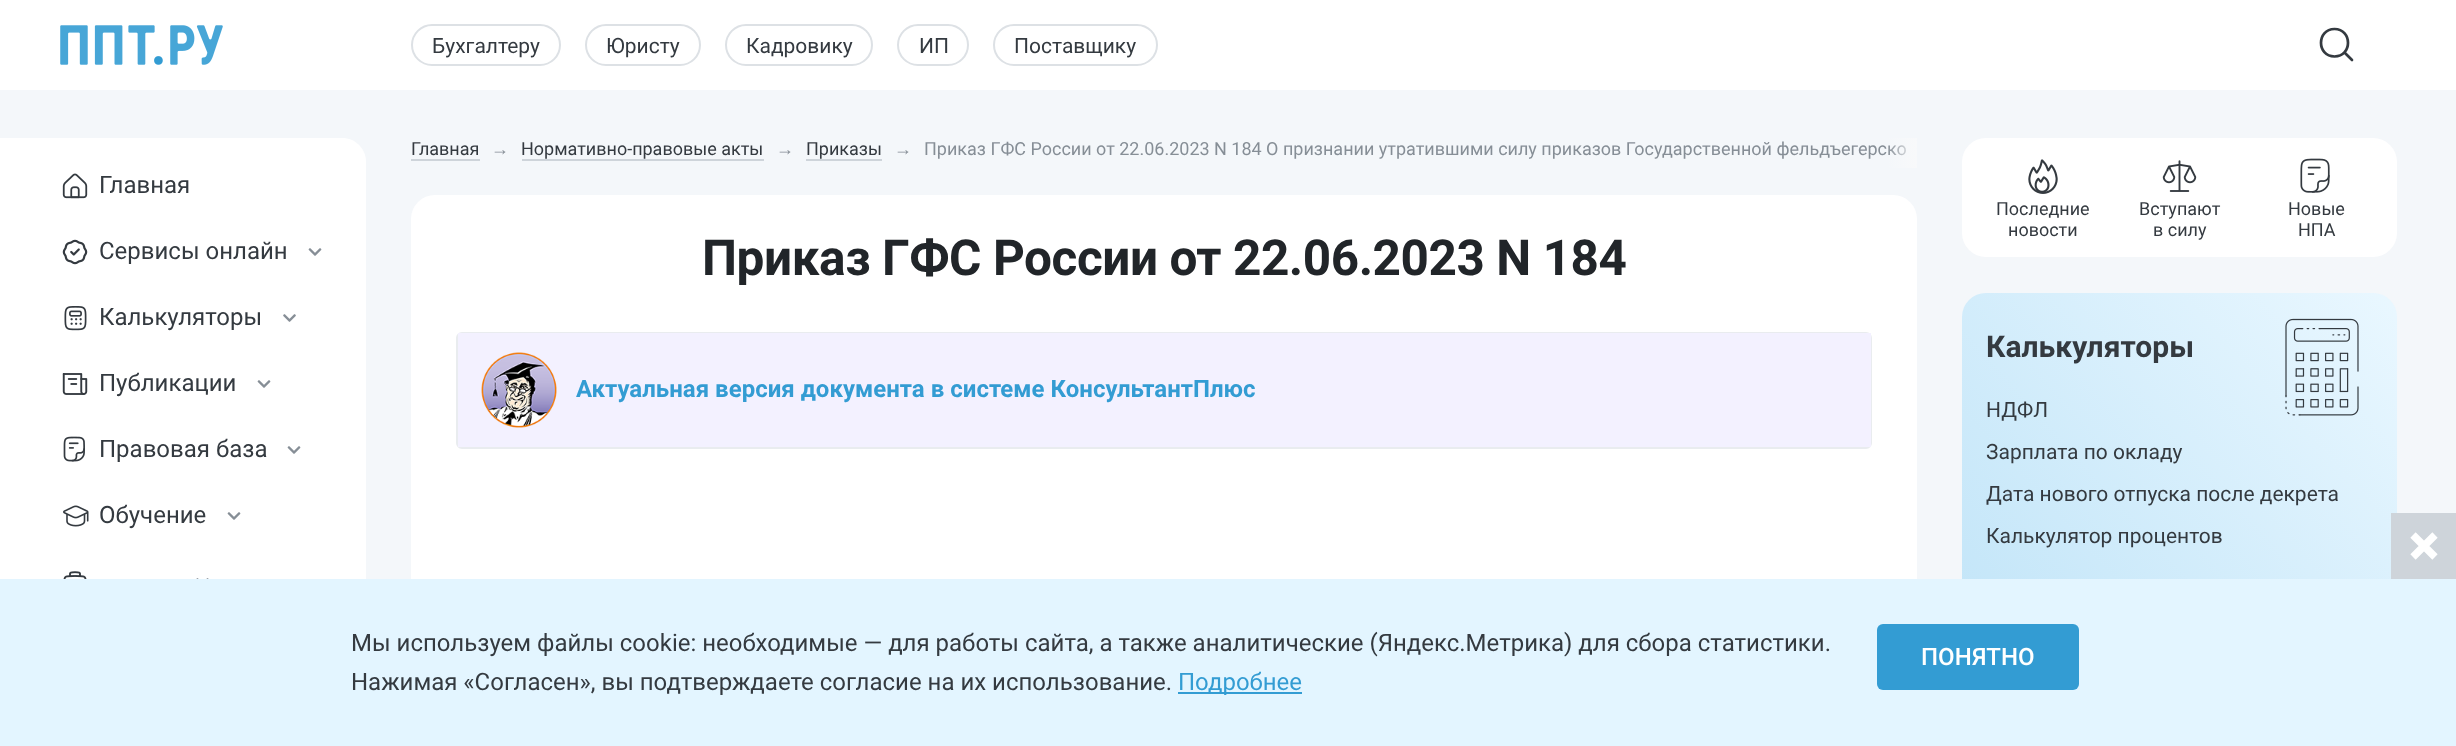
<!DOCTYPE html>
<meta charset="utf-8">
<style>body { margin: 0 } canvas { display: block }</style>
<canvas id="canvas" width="2456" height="746"></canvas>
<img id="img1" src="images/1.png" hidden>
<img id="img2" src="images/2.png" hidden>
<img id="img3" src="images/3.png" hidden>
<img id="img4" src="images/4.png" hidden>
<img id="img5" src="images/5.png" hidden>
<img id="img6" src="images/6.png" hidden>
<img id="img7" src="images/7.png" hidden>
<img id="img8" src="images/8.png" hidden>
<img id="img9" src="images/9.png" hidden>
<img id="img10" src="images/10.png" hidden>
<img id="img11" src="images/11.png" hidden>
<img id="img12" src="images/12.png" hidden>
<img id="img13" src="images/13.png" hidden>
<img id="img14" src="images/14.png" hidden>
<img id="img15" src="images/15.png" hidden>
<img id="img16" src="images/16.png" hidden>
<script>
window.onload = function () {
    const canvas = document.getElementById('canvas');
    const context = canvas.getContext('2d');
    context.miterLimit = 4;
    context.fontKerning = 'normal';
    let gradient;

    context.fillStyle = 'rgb(244, 247, 250)';
    context.fillRect(0, 0, 2456, 746);
    context.fillStyle = 'rgb(255, 255, 255)';
    context.fillRect(0, 0, 2456, 90);
    context.drawImage(document.getElementById('img1'), 60, 25, 163, 40);
    context.beginPath();
    context.roundRect(412, 25, 148, 40, 20);
    context.strokeStyle = 'rgb(221, 225, 229)';
    context.lineWidth = 2;
    context.stroke();
    context.beginPath();
    context.roundRect(586, 25, 114, 40, 20);
    context.stroke();
    context.beginPath();
    context.roundRect(726, 25, 146, 40, 20);
    context.stroke();
    context.beginPath();
    context.roundRect(898, 25, 70, 40, 20);
    context.stroke();
    context.beginPath();
    context.roundRect(994, 25, 163, 40, 20);
    context.stroke();
    context.beginPath();
    context.moveTo(2334.5, 56.5);
    context.bezierCurveTo(2352.5, 56.5, 2352.5, 29, 2334.5, 29);
    context.bezierCurveTo(2316.5, 29, 2316.5, 56.5, 2334.5, 56.5);
    context.closePath();
    context.moveTo(2352, 60);
    context.lineTo(2344.5, 52.5);
    context.strokeStyle = 'rgb(52, 58, 64)';
    context.lineWidth = 2.7;
    context.lineCap = 'round';
    context.lineJoin = 'round';
    context.stroke();
    context.beginPath();
    context.moveTo(0, 138);
    context.lineTo(342, 138);
    context.bezierCurveTo(355.5, 138, 366, 148.5, 366, 162);
    context.lineTo(366, 723);
    context.bezierCurveTo(366, 736.5, 355.5, 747, 342, 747);
    context.lineTo(0, 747);
    context.closePath();
    context.fill();
    context.drawImage(document.getElementById('img2'), 62, 173, 26, 26);
    context.drawImage(document.getElementById('img3'), 62, 239, 26, 26);
    context.drawImage(document.getElementById('img4'), 308, 248, 14, 8);
    context.drawImage(document.getElementById('img5'), 64, 306, 23, 25);
    context.drawImage(document.getElementById('img6'), 283, 314, 13, 8);
    context.drawImage(document.getElementById('img7'), 62, 373, 26, 22);
    context.drawImage(document.getElementById('img4'), 257, 380, 14, 8);
    context.drawImage(document.getElementById('img8'), 63, 436, 22, 26);
    context.drawImage(document.getElementById('img4'), 287, 446, 14, 8);
    context.drawImage(document.getElementById('img9'), 63, 505, 26, 22);
    context.drawImage(document.getElementById('img4'), 227, 512, 14, 8);
    context.drawImage(document.getElementById('img10'), 63, 571, 24, 8);
    context.drawImage(document.getElementById('img11'), 196, 578, 13, 1);
    context.fillStyle = 'rgb(206, 212, 218)';
    context.fillRect(411, 159, 69, 2);
    context.fillRect(522, 159, 242, 2);
    context.fillRect(806, 159, 76, 2);
    context.fillStyle = 'rgb(255, 255, 255)';
    context.beginPath();
    context.roundRect(411, 195, 1506, 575, 24);
    context.fill();
    context.beginPath();
    context.roundRect(457, 333, 1414, 115, 5);
    context.strokeStyle = 'rgb(233, 236, 239)';
    context.lineWidth = 2;
    context.lineJoin = 'miter';
    context.stroke();
    context.fillStyle = 'rgb(243, 241, 255)';
    context.fillRect(458, 333, 1413, 114);
    context.drawImage(document.getElementById('img12'), 481, 352, 76, 76);
    context.fillStyle = 'rgb(255, 255, 255)';
    context.beginPath();
    context.roundRect(1962, 138, 435, 119, 24);
    context.fill();
    context.drawImage(document.getElementById('img13'), 2028, 159, 30, 35);
    context.drawImage(document.getElementById('img14'), 2162, 160, 35, 32);
    context.drawImage(document.getElementById('img15'), 2300, 158, 30, 35);
    context.fillStyle = 'rgb(227, 245, 255)';
    context.beginPath();
    context.roundRect(1962, 293, 435, 399, 24);
    context.fill();
    gradient = context.createLinearGradient(2399, 294, 1960, 690);
    gradient.addColorStop(0.02, 'rgba(255, 255, 255, 0.2)');
    gradient.addColorStop(0.97, 'rgba(57, 162, 220, 0.2)');
    context.fillStyle = gradient;
    context.beginPath();
    context.roundRect(1962, 293, 435, 399, 24);
    context.fill();
    context.drawImage(document.getElementById('img16'), 2285, 318, 74, 98);
    context.fillStyle = 'rgb(227, 245, 255)';
    context.fillRect(0, 579, 2456, 167);
    context.fillStyle = 'rgb(206, 212, 218)';
    context.fillRect(2391, 513, 65, 66);
    context.beginPath();
    context.moveTo(2413, 557);
    context.lineTo(2435, 535);
    context.moveTo(2435, 557);
    context.lineTo(2413, 535);
    context.strokeStyle = 'rgb(255, 255, 255)';
    context.lineWidth = 7.5;
    context.lineCap = 'butt';
    context.lineJoin = 'round';
    context.stroke();
    context.fillStyle = 'rgb(51, 156, 211)';
    context.fillRect(1178, 692, 124, 2);
    context.beginPath();
    context.roundRect(1877, 624, 202, 66, 6);
    context.fill();
    context.font = '21px Roboto';
    context.fillStyle = 'rgb(52, 58, 64)';
    context.fillText('Бухгалтеру', 432, 53);
    context.fillText('Юристу', 606, 53);
    context.fillText('Кадровику', 746, 53);
    context.fillText('ИП', 919, 53);
    context.fillText('Поставщику', 1014, 53);
    context.font = '24px Roboto';
    context.fillText('Главная', 99, 193);
    context.fillText('Сервисы онлайн', 99, 259);
    context.fillText('Калькуляторы', 99, 325);
    context.fillText('Публикации', 99, 391);
    context.fillText('Правовая база', 99, 457);
    context.fillText('Обучение', 99, 523);
    context.font = '18px Roboto';
    context.fillText('Главная', 411, 155);
    context.font = '18px Liberation Serif';
    context.fillStyle = 'rgb(134, 142, 150)';
    context.fillText('→', 491, 155);
    context.font = '18px Roboto';
    context.fillStyle = 'rgb(52, 58, 64)';
    context.fillText('Нормативно-правовые акты', 521, 155);
    context.font = '18px Liberation Serif';
    context.fillStyle = 'rgb(134, 142, 150)';
    context.fillText('→', 776, 155);
    context.font = '18px Roboto';
    context.fillStyle = 'rgb(52, 58, 64)';
    context.fillText('Приказы', 806, 155);
    context.font = '18px Liberation Serif';
    context.fillStyle = 'rgb(134, 142, 150)';
    context.fillText('→', 894, 155);
    context.font = '18px Roboto';
    context.fillText('Приказ ГФС России от 22.06.2023 N 184 О признании утратившими силу приказов Государственной фельдъегерско', 924, 155);
    gradient = context.createLinearGradient(1887, 153, 1917, 153);
    gradient.addColorStop(0, 'rgba(248, 249, 250, 0)');
    gradient.addColorStop(1, 'rgb(248, 249, 250)');
    context.fillStyle = gradient;
    context.fillRect(1888, 138, 29, 30);
    context.letterSpacing = '-0.45px';
    context.font = 'bold 49.5px Roboto';
    context.fillStyle = 'rgb(33, 37, 41)';
    context.fillText('Приказ ГФС России от 22.06.2023 N 184', 702, 275);
    context.letterSpacing = '0px';
    context.font = 'bold 24px Roboto';
    context.fillStyle = 'rgb(51, 156, 211)';
    context.fillText('Актуальная версия документа в системе КонсультантПлюс', 576, 397);
    context.font = '18px Roboto';
    context.fillStyle = 'rgb(52, 58, 64)';
    context.fillText('Последние', 1996, 215);
    context.fillText('новости', 2008, 236);
    context.fillText('Вступают', 2139, 215);
    context.fillText('в силу', 2153, 236);
    context.fillText('Новые', 2288, 215);
    context.fillText('НПА', 2298, 236);
    context.font = 'bold 30px Roboto';
    context.fillText('Калькуляторы', 1986, 357);
    context.font = '21px Roboto';
    context.fillText('НДФЛ', 1986, 417);
    context.fillText('Зарплата по окладу', 1986, 459);
    context.fillText('Дата нового отпуска после декрета', 1986, 501);
    context.fillText('Калькулятор процентов', 1986, 543);
    context.font = '24px Roboto';
    context.fillText('Мы используем файлы cookie: необходимые — для работы сайта, а также аналитические (Яндекс.Метрика) для сбора статистики.', 351, 651);
    context.fillText('Нажимая «Согласен», вы подтверждаете согласие на их использование.', 351, 690);
    context.fillStyle = 'rgb(51, 156, 211)';
    context.fillText('Подробнее', 1178, 690);
    context.font = '500 24px Roboto';
    context.fillStyle = 'rgb(255, 255, 255)';
    context.fillText('ПОНЯТНО', 1921, 665);
};
</script>
